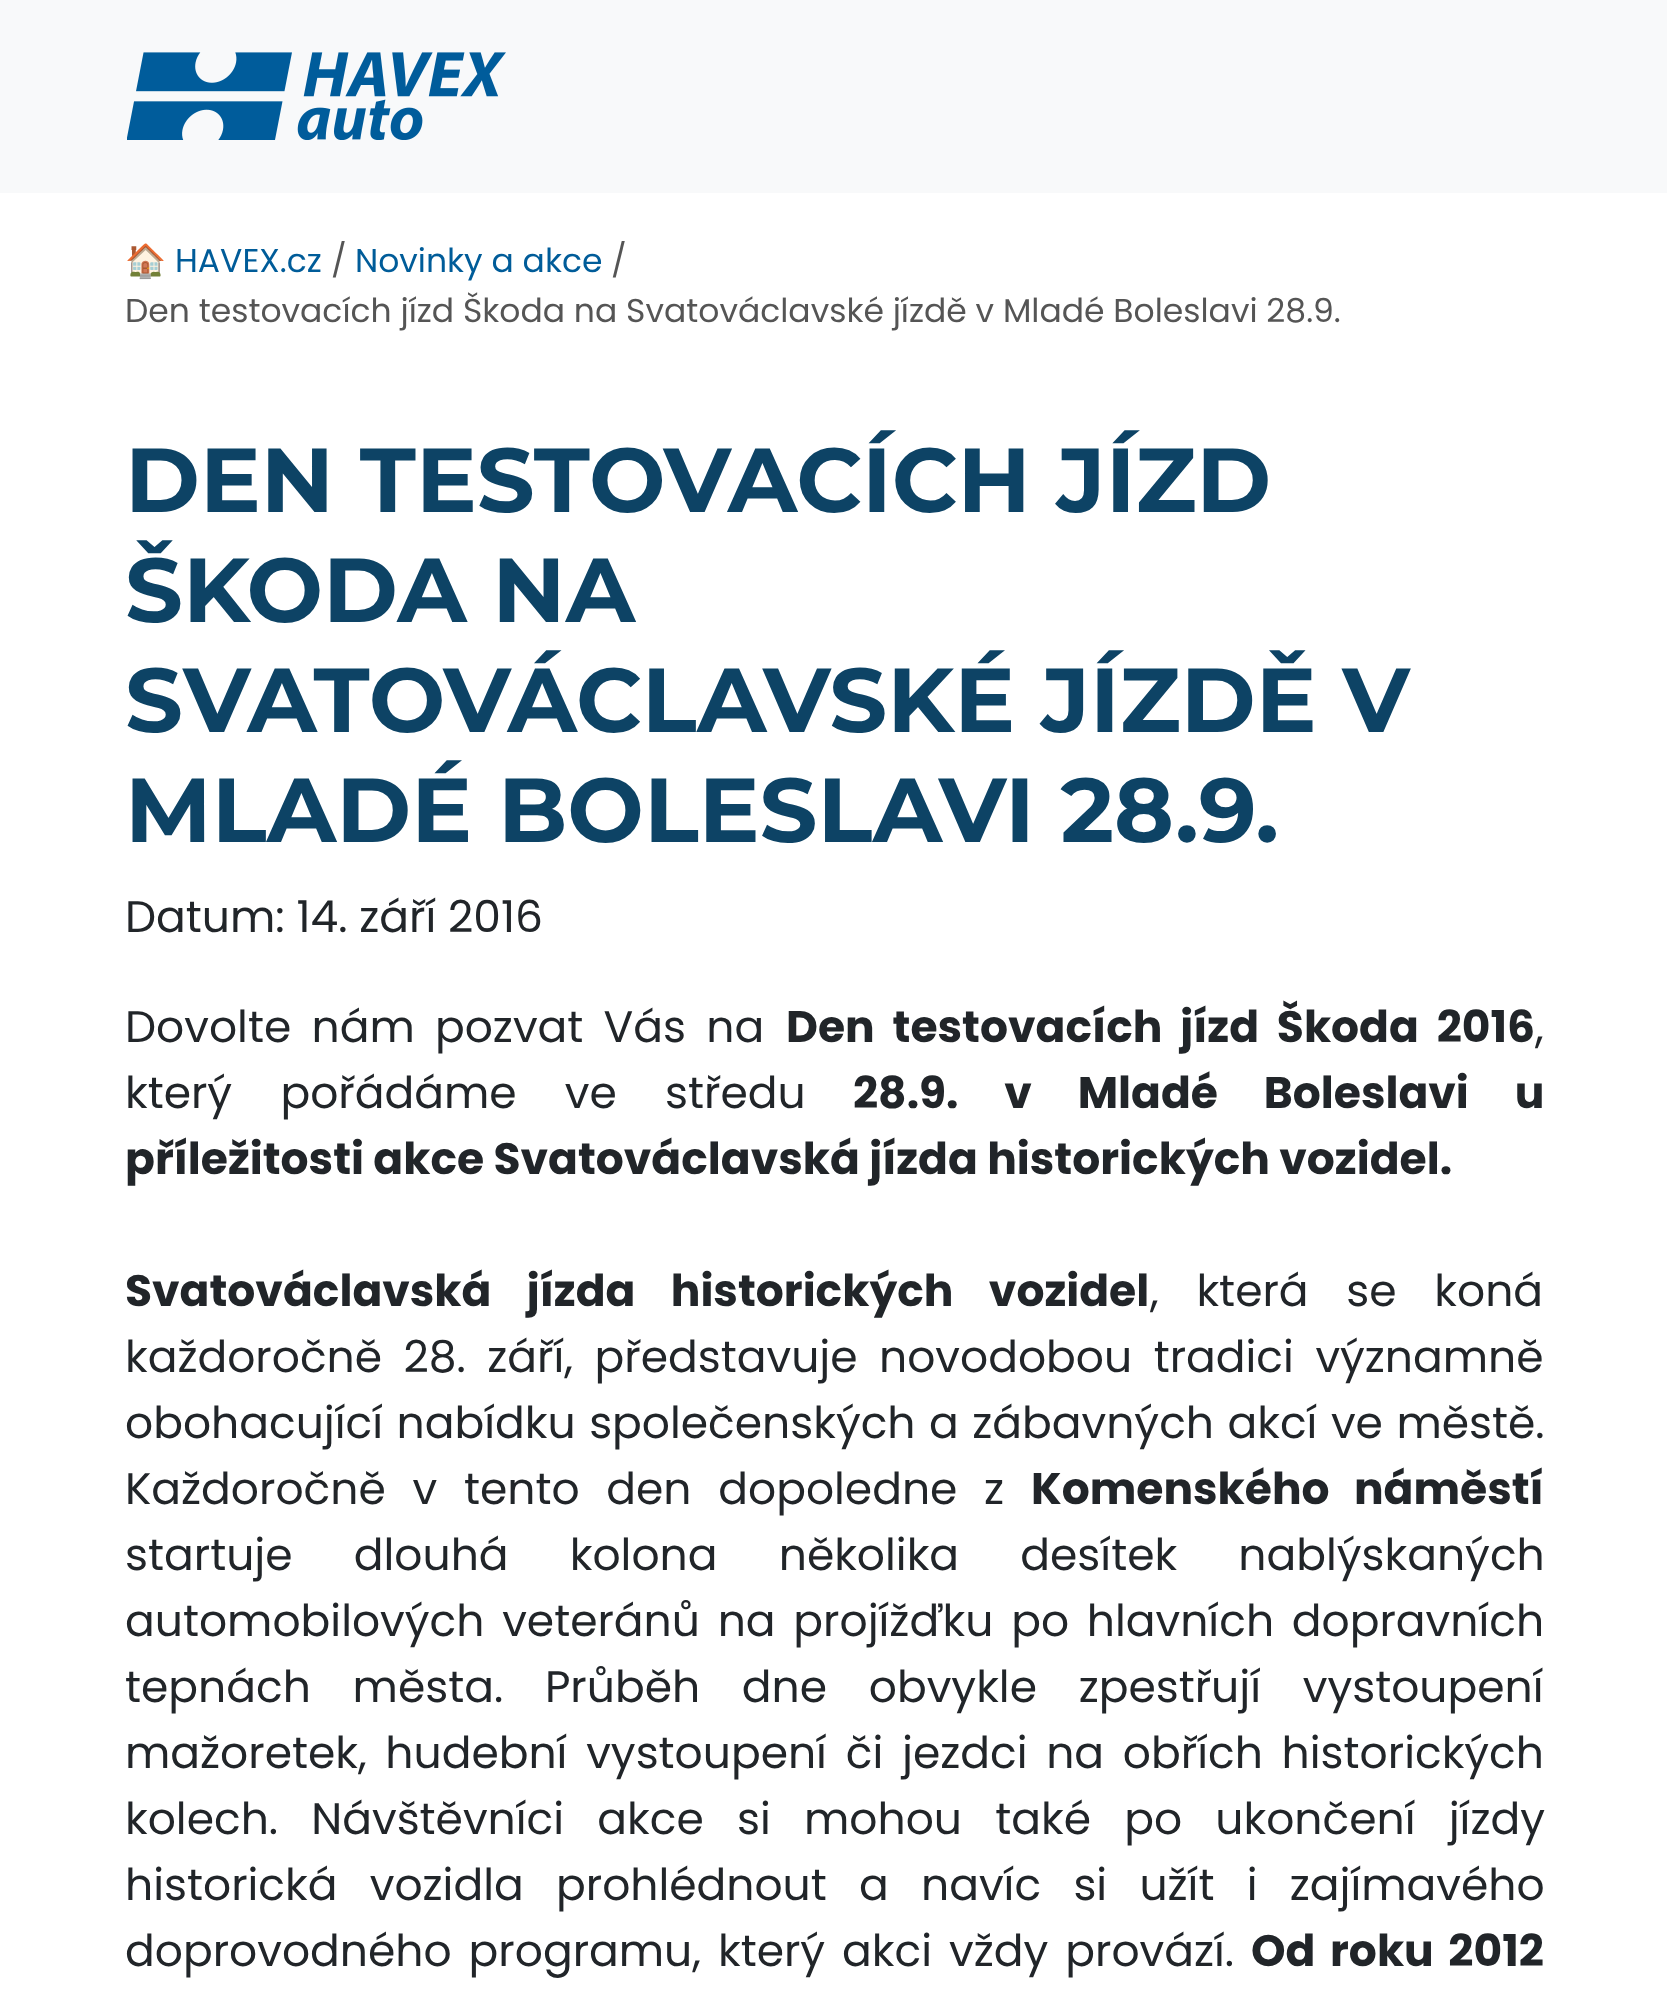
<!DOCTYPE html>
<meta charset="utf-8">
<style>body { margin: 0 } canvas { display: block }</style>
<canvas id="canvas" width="1667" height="1990"></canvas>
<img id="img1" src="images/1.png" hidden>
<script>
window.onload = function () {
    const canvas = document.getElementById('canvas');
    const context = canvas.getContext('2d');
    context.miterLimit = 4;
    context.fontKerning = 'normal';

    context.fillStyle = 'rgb(255, 255, 255)';
    context.fillRect(0, 0, 1667, 1990);
    context.fillStyle = 'rgb(248, 249, 250)';
    context.fillRect(0, 0, 1667, 193);
    context.drawImage(document.getElementById('img1'), 127, 52, 379, 88);
    context.font = '33px Noto Color Emoji';
    context.fillStyle = 'rgb(0, 92, 153)';
    context.fillText('🏠', 125, 272);
    context.font = '33px Poppins';
    context.fillText('HAVEX.cz', 175, 272);
    context.fillStyle = 'rgb(85, 85, 85)';
    context.fillText('/', 331, 272);
    context.fillStyle = 'rgb(0, 92, 153)';
    context.fillText('Novinky a akce', 355, 272);
    context.fillStyle = 'rgb(85, 85, 85)';
    context.fillText('/', 611, 272);
    context.fillText('Den testovacích jízd Škoda na Svatováclavské jízdě v Mladé Boleslavi 28.9.', 125, 322);
    context.font = 'bold 90.75px Montserrat';
    context.fillStyle = 'rgb(13, 67, 101)';
    context.fillText('DEN TESTOVACÍCH JÍZD', 125, 512);
    context.fillText('ŠKODA NA', 125, 622);
    context.fillText('SVATOVÁCLAVSKÉ JÍZDĚ V', 125, 732);
    context.fillText('MLADÉ BOLESLAVI 28.9.', 125, 842);
    context.font = '44px Poppins';
    context.fillStyle = 'rgb(33, 37, 41)';
    context.fillText('Datum: 14. září 2016', 125, 932);
    context.wordSpacing = '8.5px';
    context.fillText('Dovolte nám pozvat Vás na', 125, 1042);
    context.font = 'bold 44px Poppins';
    context.fillText('Den testovacích jízd Škoda 2016', 786, 1042);
    context.wordSpacing = '0px';
    context.font = '44px Poppins';
    context.fillText(',', 1535, 1042);
    context.wordSpacing = '36.5px';
    context.fillText('který pořádáme ve středu', 125, 1108);
    context.font = 'bold 44px Poppins';
    context.fillText('28.9. v Mladé Boleslavi u', 853, 1108);
    context.wordSpacing = '0px';
    context.fillText('příležitosti akce Svatováclavská jízda historických vozidel.', 125, 1174);
    context.wordSpacing = '26px';
    context.fillText('Svatováclavská jízda historických vozidel', 125, 1306);
    context.font = '44px Poppins';
    context.fillText(', která se koná', 1150, 1306);
    context.wordSpacing = '9.75px';
    context.fillText('každoročně 28. září, představuje novodobou tradici významně', 125, 1372);
    context.wordSpacing = '1.75px';
    context.fillText('obohacující nabídku společenských a zábavných akcí ve městě.', 125, 1438);
    context.wordSpacing = '15px';
    context.fillText('Každoročně v tento den dopoledne z', 125, 1504);
    context.font = 'bold 44px Poppins';
    context.fillText('Komenského náměstí', 1031, 1504);
    context.wordSpacing = '49.5px';
    context.font = '44px Poppins';
    context.fillText('startuje dlouhá kolona několika desítek nablýskaných', 125, 1570);
    context.wordSpacing = '6px';
    context.fillText('automobilových veteránů na projížďku po hlavních dopravních', 125, 1636);
    context.wordSpacing = '30px';
    context.fillText('tepnách města. Průběh dne obvykle zpestřují vystoupení', 125, 1702);
    context.wordSpacing = '7px';
    context.fillText('mažoretek, hudební vystoupení či jezdci na obřích historických', 125, 1768);
    context.wordSpacing = '21.5px';
    context.fillText('kolech. Návštěvníci akce si mohou také po ukončení jízdy', 125, 1834);
    context.wordSpacing = '20.5px';
    context.fillText('historická vozidla prohlédnout a navíc si užít i zajímavého', 125, 1900);
    context.wordSpacing = '5.25px';
    context.fillText('doprovodného programu, který akci vždy provází.', 125, 1966);
    context.font = 'bold 44px Poppins';
    context.fillText('Od roku 2012', 1251, 1966);
};
</script>
